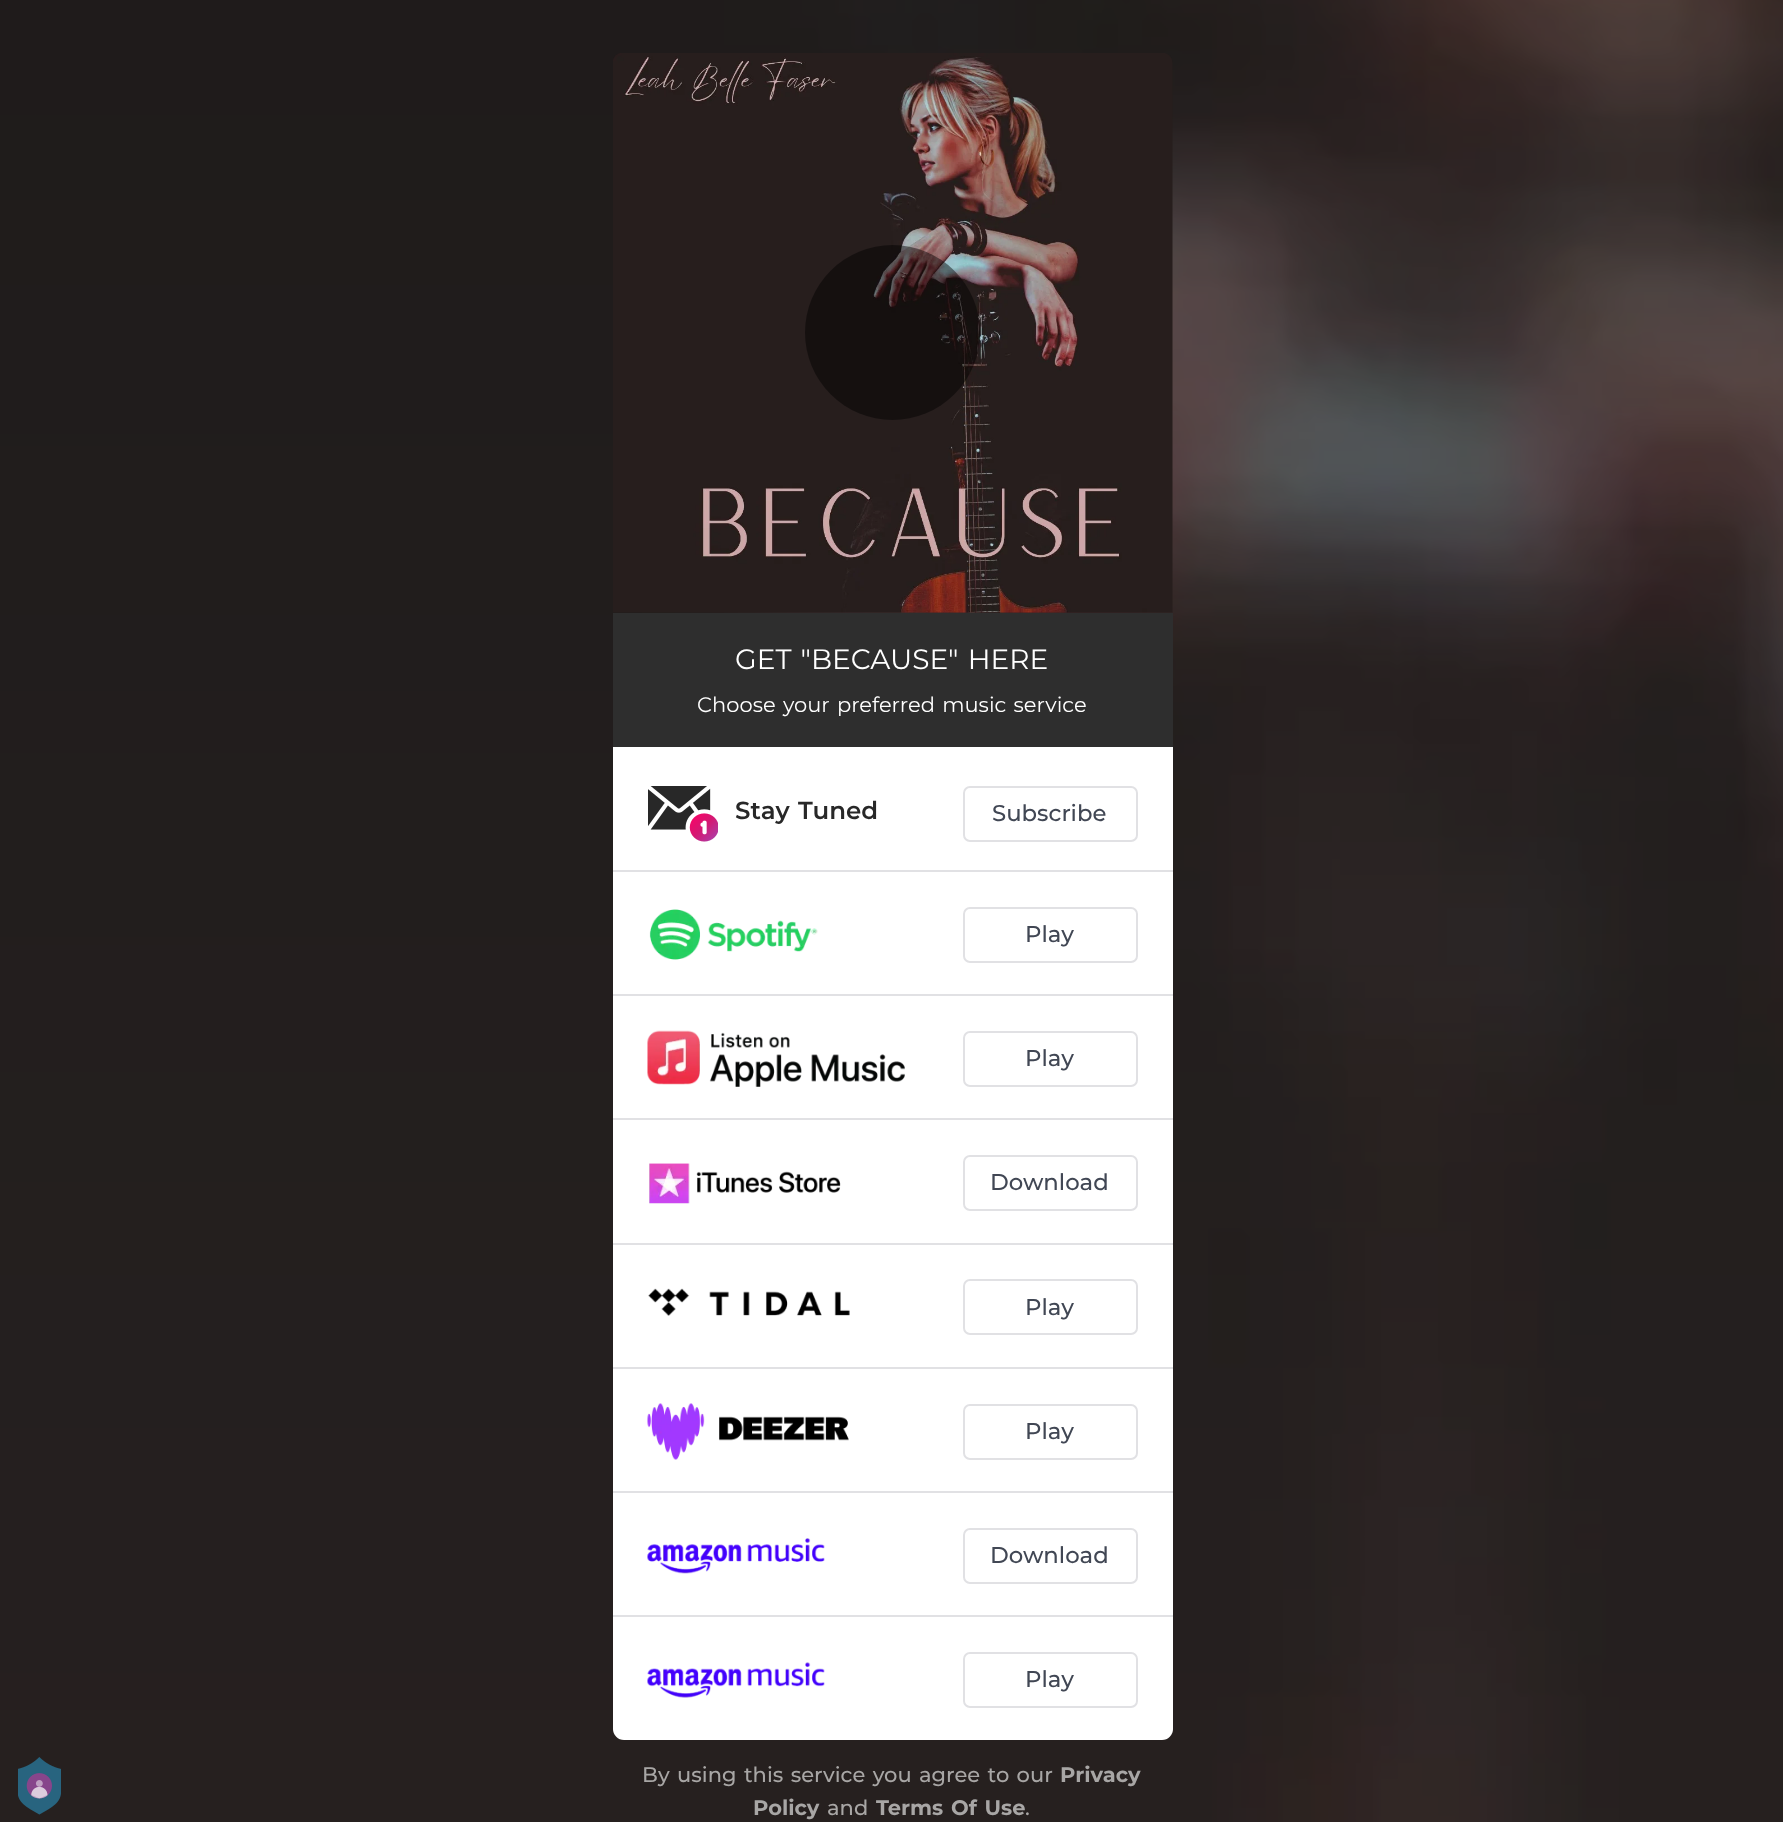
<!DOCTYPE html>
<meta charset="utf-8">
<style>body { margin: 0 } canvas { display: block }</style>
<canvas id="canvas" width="1783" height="1822"></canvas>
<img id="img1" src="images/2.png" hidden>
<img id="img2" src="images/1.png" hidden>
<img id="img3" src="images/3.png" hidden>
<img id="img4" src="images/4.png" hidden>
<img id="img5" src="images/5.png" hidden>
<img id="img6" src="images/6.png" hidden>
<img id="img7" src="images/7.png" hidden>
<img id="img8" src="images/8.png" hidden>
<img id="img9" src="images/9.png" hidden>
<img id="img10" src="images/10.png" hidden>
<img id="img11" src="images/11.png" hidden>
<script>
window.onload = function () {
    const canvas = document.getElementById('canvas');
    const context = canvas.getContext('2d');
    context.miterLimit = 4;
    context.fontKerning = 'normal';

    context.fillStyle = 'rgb(255, 255, 255)';
    context.fillRect(0, 0, 1783, 1822);
    context.drawImage(document.getElementById('img1'), 0, 0, 1783, 1822);
    context.drawImage(document.getElementById('img2'), 18, 1757, 43, 58);
    context.drawImage(document.getElementById('img3'), 613, 53, 560, 560);
    context.fillStyle = 'rgba(0, 0, 0, 0.45)';
    context.beginPath();
    context.arc(892.5, 332.5, 87.5, 0, 2 * Math.PI);
    context.fill();
    context.fillStyle = 'rgb(46, 46, 46)';
    context.fillRect(613, 613, 560, 134);
    context.fillStyle = 'rgb(255, 255, 255)';
    context.beginPath();
    context.roundRect(613, 747, 560, 993, [0, 0, 11, 11]);
    context.fill();
    context.fillStyle = 'rgb(225, 225, 228)';
    context.fillRect(613, 870, 560, 2);
    context.drawImage(document.getElementById('img4'), 648, 786, 70, 56);
    context.beginPath();
    context.roundRect(964, 787, 173, 54, 6);
    context.strokeStyle = 'rgb(225, 225, 228)';
    context.lineWidth = 2;
    context.stroke();
    context.fillRect(613, 994, 560, 2);
    context.drawImage(document.getElementById('img5'), 649, 909, 169, 51);
    context.beginPath();
    context.roundRect(964, 908, 173, 54, 6);
    context.stroke();
    context.fillRect(613, 1118, 560, 2);
    context.drawImage(document.getElementById('img6'), 647, 1030, 258, 57);
    context.beginPath();
    context.roundRect(964, 1032, 173, 54, 6);
    context.stroke();
    context.fillRect(613, 1243, 560, 2);
    context.drawImage(document.getElementById('img7'), 649, 1163, 192, 41);
    context.beginPath();
    context.roundRect(964, 1156, 173, 54, 6);
    context.stroke();
    context.fillRect(613, 1367, 560, 2);
    context.drawImage(document.getElementById('img8'), 648, 1288, 202, 28);
    context.beginPath();
    context.roundRect(964, 1280, 173, 54, 6);
    context.stroke();
    context.fillRect(613, 1491, 560, 2);
    context.drawImage(document.getElementById('img9'), 647, 1403, 202, 57);
    context.beginPath();
    context.roundRect(964, 1405, 173, 54, 6);
    context.stroke();
    context.fillRect(613, 1615, 560, 2);
    context.drawImage(document.getElementById('img10'), 647, 1538, 178, 36);
    context.beginPath();
    context.roundRect(964, 1529, 173, 54, 6);
    context.stroke();
    context.drawImage(document.getElementById('img11'), 647, 1662, 178, 36);
    context.beginPath();
    context.roundRect(964, 1653, 173, 54, 6);
    context.stroke();
    context.wordSpacing = '1.75px';
    context.font = '28px Montserrat';
    context.fillStyle = 'rgb(255, 255, 255)';
    context.fillText('GET "BECAUSE" HERE', 735, 669);
    context.font = '21px Montserrat';
    context.fillText('Choose your preferred music service', 697, 712);
    context.font = '600 24.5px Montserrat';
    context.fillStyle = 'rgb(40, 40, 40)';
    context.fillText('Stay Tuned', 735, 819);
    context.wordSpacing = '0px';
    context.font = '500 22.75px Montserrat';
    context.fillStyle = 'rgb(65, 71, 84)';
    context.fillText('Subscribe', 992, 821);
    context.fillText('Play', 1025, 942);
    context.fillText('Play', 1025, 1066);
    context.fillText('Download', 990, 1190);
    context.fillText('Play', 1025, 1315);
    context.fillText('Play', 1025, 1439);
    context.fillText('Download', 990, 1563);
    context.fillText('Play', 1025, 1687);
    context.wordSpacing = '1.75px';
    context.font = '500 21px Montserrat';
    context.fillStyle = 'rgb(168, 166, 165)';
    context.fillText('By using this service you agree to our', 642, 1782);
    context.wordSpacing = '0px';
    context.font = 'bold 21px Montserrat';
    context.fillText('Privacy', 1060, 1782);
    context.fillText('Policy', 753, 1815);
    context.font = '500 21px Montserrat';
    context.fillText('and', 827, 1815);
    context.wordSpacing = '1.75px';
    context.font = 'bold 21px Montserrat';
    context.fillText('Terms Of Use', 876, 1815);
    context.wordSpacing = '0px';
    context.font = '500 21px Montserrat';
    context.fillText('.', 1025, 1815);
};
</script>
